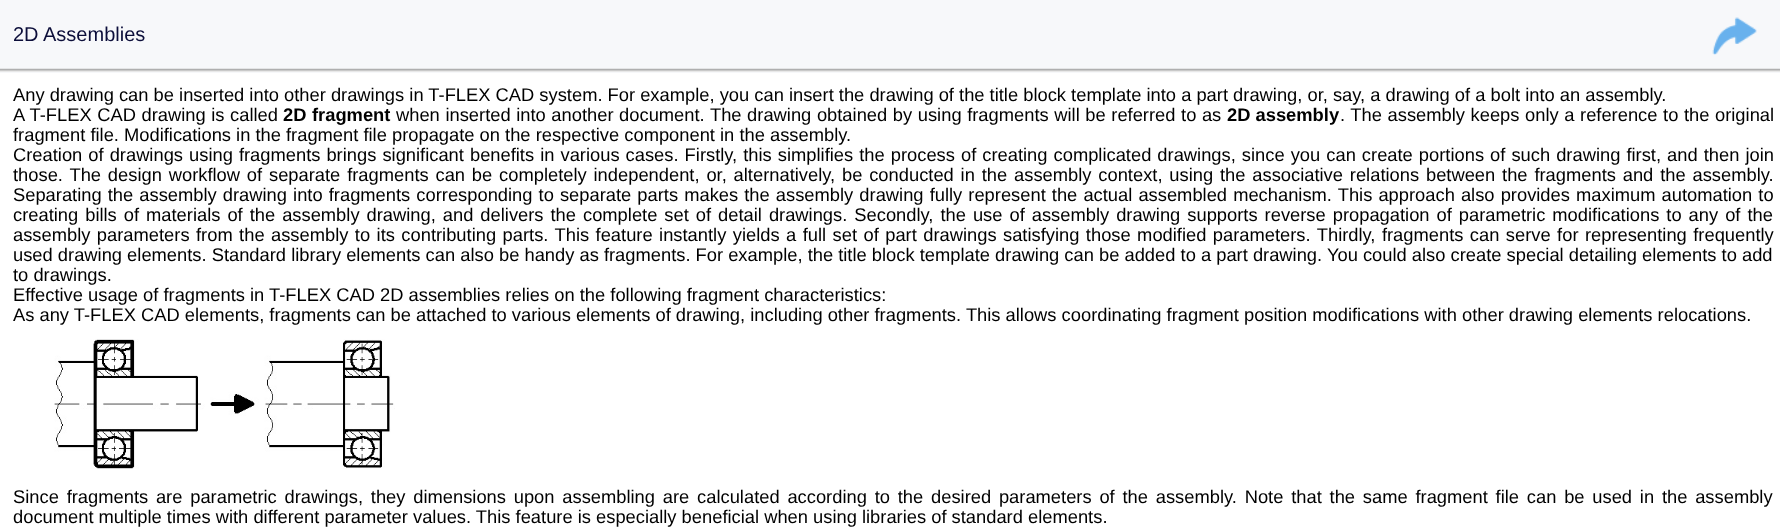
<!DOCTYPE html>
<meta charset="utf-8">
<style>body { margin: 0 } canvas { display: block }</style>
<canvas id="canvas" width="1780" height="528"></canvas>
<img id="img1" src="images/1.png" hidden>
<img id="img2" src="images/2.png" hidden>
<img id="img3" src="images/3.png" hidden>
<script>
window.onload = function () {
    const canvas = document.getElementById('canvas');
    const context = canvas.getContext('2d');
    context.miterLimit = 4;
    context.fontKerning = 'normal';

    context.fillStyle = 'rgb(255, 255, 255)';
    context.fillRect(0, 0, 1780, 528);
    context.fillStyle = 'rgb(247, 248, 250)';
    context.fillRect(0, 0, 1780, 73);
    context.drawImage(document.getElementById('img1'), 1712, 17, 45, 38);
    context.drawImage(document.getElementById('img2'), 0, 68, 1780, 4);
    context.drawImage(document.getElementById('img3'), 54, 339, 341, 130);
    context.font = '20px Liberation Sans';
    context.fillStyle = 'rgb(12, 14, 58)';
    context.fillText('2D Assemblies', 13, 41);
    context.font = '18.33px Liberation Sans';
    context.fillStyle = 'rgb(0, 0, 0)';
    context.fillText('Any drawing can be inserted into other drawings in T-FLEX CAD system. For example, you can insert the drawing of the title block template into a part drawing, or, say, a drawing of a bolt into an assembly.', 13, 101);
    context.wordSpacing = '0.5px';
    context.fillText('A T-FLEX CAD drawing is called', 13, 121);
    context.wordSpacing = '0px';
    context.font = 'bold 18.33px Liberation Sans';
    context.fillText('2D', 283, 121);
    context.fillText('fragment', 312, 121);
    context.wordSpacing = '0.5px';
    context.font = '18.33px Liberation Sans';
    context.fillText('when inserted into another document. The drawing obtained by using fragments will be referred to as', 396, 121);
    context.wordSpacing = '0px';
    context.font = 'bold 18.33px Liberation Sans';
    context.fillText('2D assembly', 1227, 121);
    context.wordSpacing = '0.5px';
    context.font = '18.33px Liberation Sans';
    context.fillText('. The assembly keeps only a reference to the original', 1340, 121);
    context.wordSpacing = '0px';
    context.fillText('fragment file. Modifications in the fragment file propagate on the respective component in the assembly.', 13, 141);
    context.wordSpacing = '0.95px';
    context.fillText('Creation of drawings using fragments brings significant benefits in various cases. Firstly, this simplifies the process of creating complicated drawings, since you can create portions of such drawing first, and then join', 13, 161);
    context.wordSpacing = '1.75px';
    context.fillText('those. The design workflow of separate fragments can be completely independent, or, alternatively, be conducted in the assembly context, using the associative relations between the fragments and the assembly.', 13, 181);
    context.wordSpacing = '1px';
    context.fillText('Separating the assembly drawing into fragments corresponding to separate parts makes the assembly drawing fully represent the actual assembled mechanism. This approach also provides maximum automation to', 13, 201);
    context.wordSpacing = '1.9px';
    context.fillText('creating bills of materials of the assembly drawing, and delivers the complete set of detail drawings. Secondly, the use of assembly drawing supports reverse propagation of parametric modifications to any of the', 13, 221);
    context.wordSpacing = '1.35px';
    context.fillText('assembly parameters from the assembly to its contributing parts. This feature instantly yields a full set of part drawings satisfying those modified parameters. Thirdly, fragments can serve for representing frequently', 13, 241);
    context.wordSpacing = '0px';
    context.fillText('used drawing elements. Standard library elements can also be handy as fragments. For example, the title block template drawing can be added to a part drawing. You could also create special detailing elements to add', 13, 261);
    context.fillText('to drawings.', 13, 281);
    context.fillText('Effective usage of fragments in T-FLEX CAD 2D assemblies relies on the following fragment characteristics:', 13, 301);
    context.fillText('As any T-FLEX CAD elements, fragments can be attached to various elements of drawing, including other fragments. This allows coordinating fragment position modifications with other drawing elements relocations.', 13, 321);
    context.wordSpacing = '2.7px';
    context.fillText('Since fragments are parametric drawings, they dimensions upon assembling are calculated according to the desired parameters of the assembly. Note that the same fragment file can be used in the assembly', 13, 503);
    context.wordSpacing = '0px';
    context.fillText('document multiple times with different parameter values. This feature is especially beneficial when using libraries of standard elements.', 13, 523);
};
</script>
